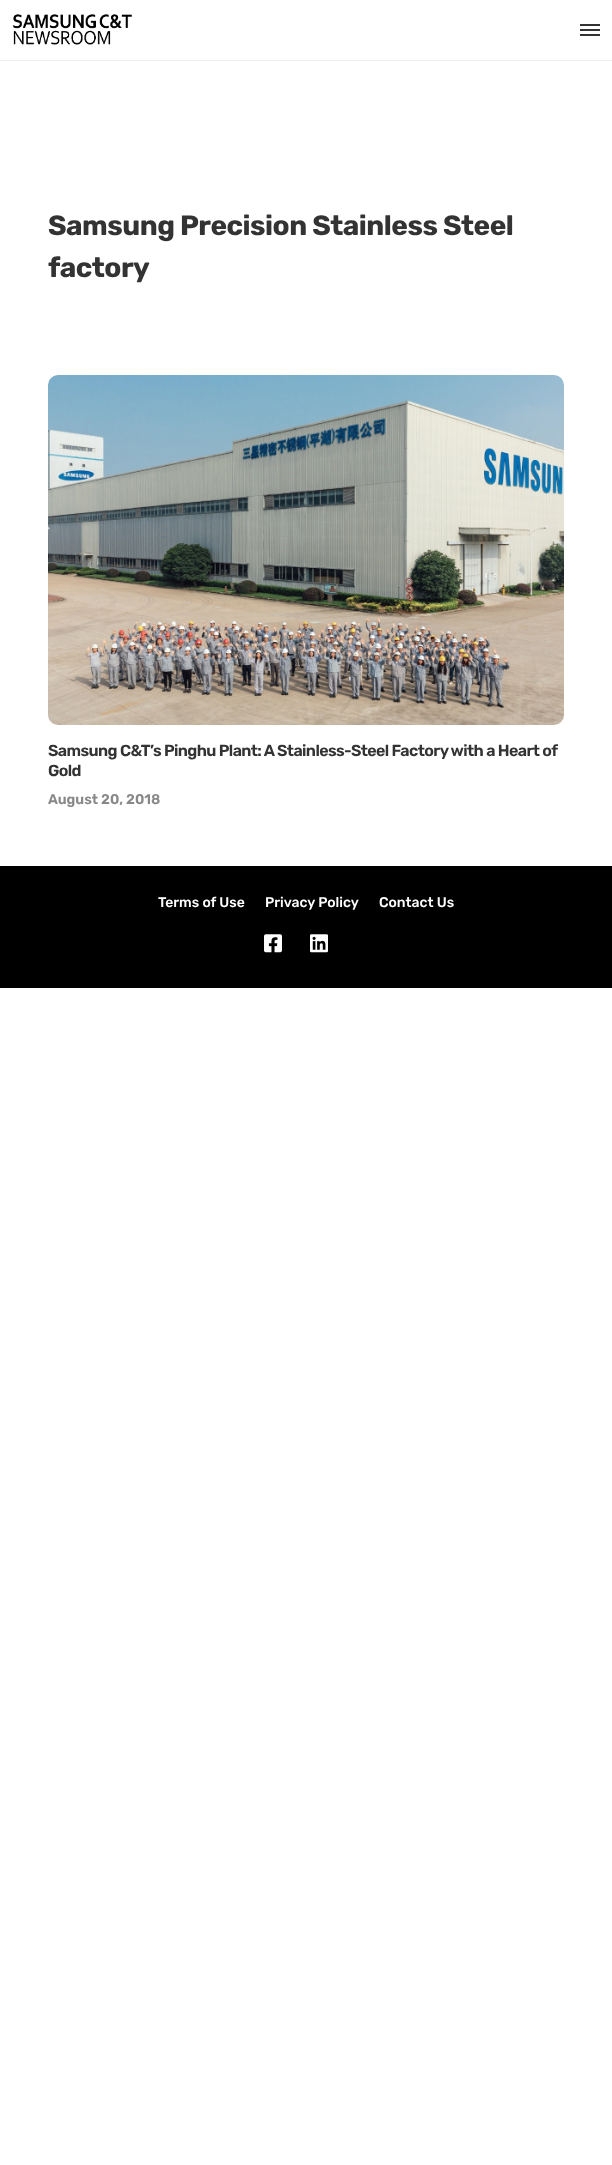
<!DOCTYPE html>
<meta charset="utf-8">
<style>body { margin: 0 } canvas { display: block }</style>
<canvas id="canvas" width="612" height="2165"></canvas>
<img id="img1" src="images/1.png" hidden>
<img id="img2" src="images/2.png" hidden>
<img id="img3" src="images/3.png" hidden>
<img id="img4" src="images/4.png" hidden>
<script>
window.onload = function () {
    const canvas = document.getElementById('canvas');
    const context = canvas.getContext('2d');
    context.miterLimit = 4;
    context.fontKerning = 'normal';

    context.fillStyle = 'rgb(255, 255, 255)';
    context.fillRect(0, 0, 612, 2165);
    context.fillStyle = 'rgb(238, 238, 238)';
    context.fillRect(0, 60, 612, 1);
    context.drawImage(document.getElementById('img1'), 13, 14, 119, 31);
    context.fillStyle = 'rgb(51, 51, 51)';
    context.fillRect(580, 29, 20, 2);
    context.fillRect(580, 24, 20, 2);
    context.fillRect(580, 34, 20, 2);
    context.drawImage(document.getElementById('img2'), 48, 375, 516, 350);
    context.fillStyle = 'rgb(0, 0, 0)';
    context.fillRect(0, 866, 612, 122);
    context.drawImage(document.getElementById('img3'), 264, 934, 18, 19);
    context.drawImage(document.getElementById('img4'), 310, 934, 18, 19);
    context.letterSpacing = '-0.5px';
    context.font = 'bold 28px Rubik';
    context.fillStyle = 'rgb(51, 51, 51)';
    context.fillText('Samsung Precision Stainless Steel', 48, 235);
    context.fillText('factory', 48, 277);
    context.letterSpacing = '-0.6px';
    context.font = '600 16px Rubik';
    context.fillText('Samsung C&T’s Pinghu Plant: A Stainless-Steel Factory with a Heart of', 48, 756);
    context.fillText('Gold', 48, 776);
    context.letterSpacing = '0px';
    context.font = '600 14px Rubik';
    context.fillStyle = 'rgb(136, 136, 136)';
    context.fillText('August 20, 2018', 48, 804);
    context.font = '500 14px Rubik';
    context.fillStyle = 'rgb(255, 255, 255)';
    context.fillText('Terms of Use', 158, 907);
    context.fillText('Privacy Policy', 265, 907);
    context.fillText('Contact Us', 379, 907);
};
</script>
